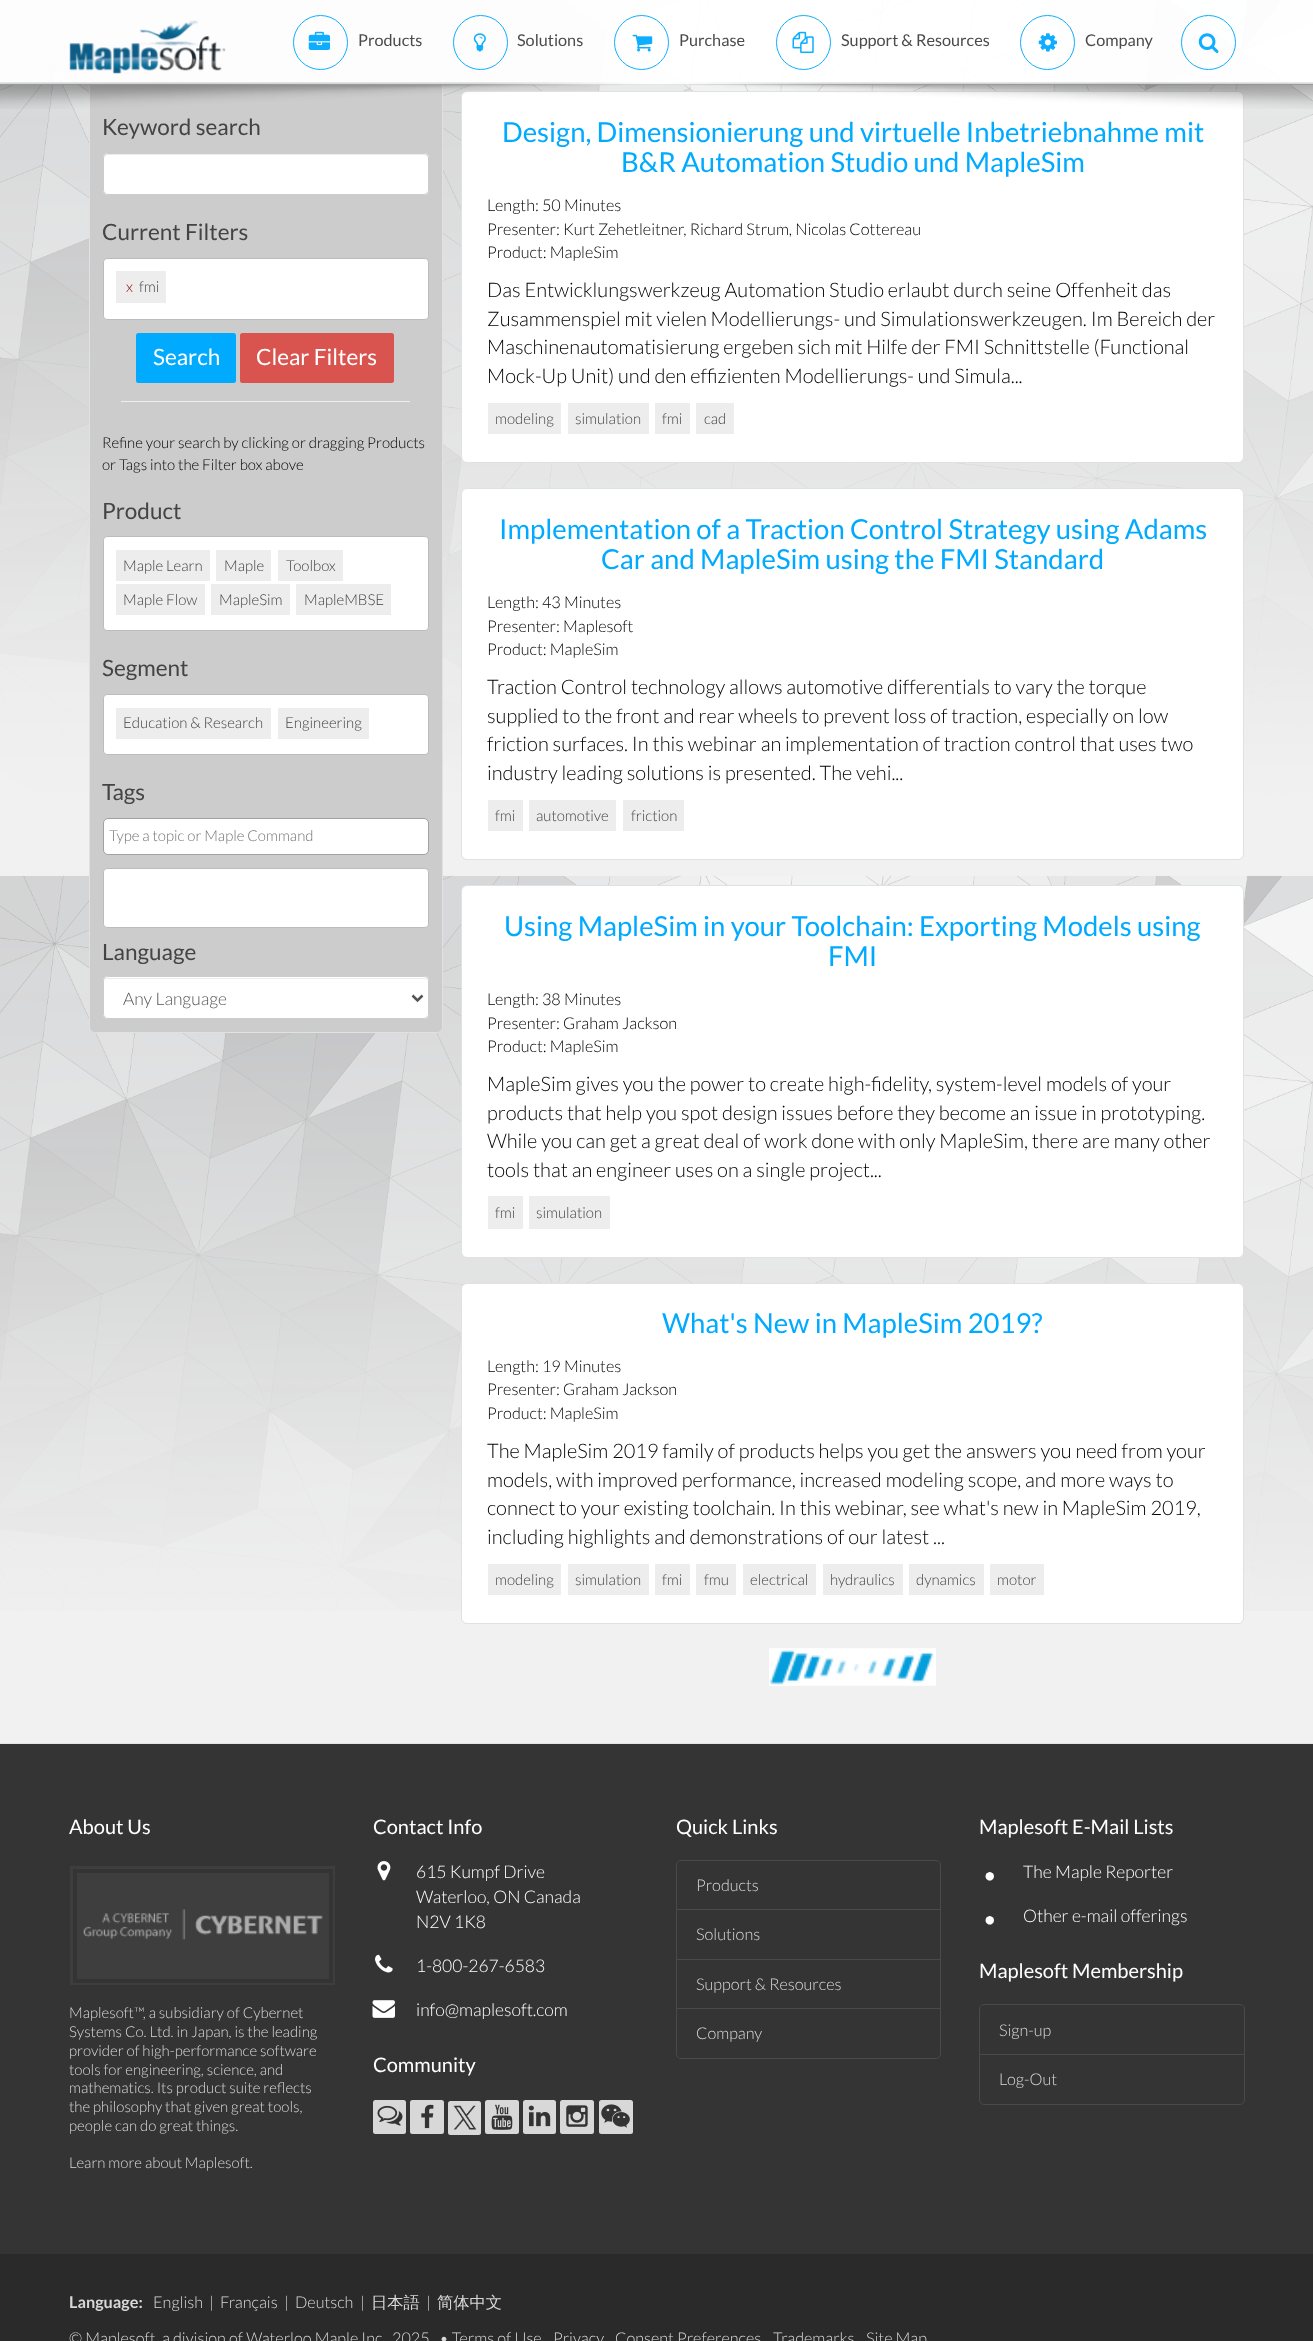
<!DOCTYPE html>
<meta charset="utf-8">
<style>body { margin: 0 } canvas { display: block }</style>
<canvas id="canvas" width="1313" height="2341"></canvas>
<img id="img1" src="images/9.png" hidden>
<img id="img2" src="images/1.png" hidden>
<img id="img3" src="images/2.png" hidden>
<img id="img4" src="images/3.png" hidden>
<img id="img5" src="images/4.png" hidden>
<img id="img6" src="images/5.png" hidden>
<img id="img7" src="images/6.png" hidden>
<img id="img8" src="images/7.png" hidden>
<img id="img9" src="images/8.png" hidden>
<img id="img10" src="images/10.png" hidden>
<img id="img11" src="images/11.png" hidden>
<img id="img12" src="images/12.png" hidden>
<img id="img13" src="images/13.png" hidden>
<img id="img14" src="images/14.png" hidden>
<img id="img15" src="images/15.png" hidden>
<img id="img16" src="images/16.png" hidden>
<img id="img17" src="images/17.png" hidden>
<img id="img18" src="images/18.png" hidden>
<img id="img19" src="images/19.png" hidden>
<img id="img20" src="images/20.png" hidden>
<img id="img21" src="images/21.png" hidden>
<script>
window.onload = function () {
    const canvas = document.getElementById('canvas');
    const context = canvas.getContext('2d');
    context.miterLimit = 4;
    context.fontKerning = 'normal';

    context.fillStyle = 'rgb(241, 241, 241)';
    context.fillRect(0, 0, 1313, 2341);
    context.drawImage(document.getElementById('img1'), 0, 0, 1313, 1611);
    context.fillStyle = 'rgb(204, 204, 204)';
    context.beginPath();
    context.roundRect(89.5, 9.5, 353, 1023, 5.5);
    context.fill();
    context.strokeStyle = 'rgb(225, 225, 225)';
    context.stroke();
    context.fillStyle = 'rgba(255, 255, 255, 0.95)';
    context.fillRect(0, 0, 1313, 85);
    context.fillStyle = 'rgba(229, 229, 229, 0.95)';
    context.fillRect(0, 84, 1313, 1);
    context.drawImage(document.getElementById('img2'), 69, 20, 157, 54);
    context.beginPath();
    context.arc(320.5, 42.5, 27, 0, 2 * Math.PI);
    context.strokeStyle = 'rgba(0, 170, 255, 0.95)';
    context.stroke();
    context.drawImage(document.getElementById('img3'), 308, 31, 22, 19);
    context.beginPath();
    context.arc(480.5, 42.5, 27, 0, 2 * Math.PI);
    context.stroke();
    context.drawImage(document.getElementById('img4'), 473, 33, 13, 19);
    context.beginPath();
    context.arc(641.5, 42.5, 27, 0, 2 * Math.PI);
    context.stroke();
    context.drawImage(document.getElementById('img5'), 632, 34, 21, 18);
    context.beginPath();
    context.arc(803.5, 42.5, 27, 0, 2 * Math.PI);
    context.stroke();
    context.drawImage(document.getElementById('img6'), 792, 31, 22, 23);
    context.beginPath();
    context.arc(1047.5, 42.5, 27, 0, 2 * Math.PI);
    context.strokeStyle = 'rgb(13, 174, 255)';
    context.stroke();
    context.drawImage(document.getElementById('img7'), 1038, 33, 19, 19);
    context.beginPath();
    context.arc(1208.5, 42.5, 27, 0, 2 * Math.PI);
    context.stroke();
    context.drawImage(document.getElementById('img8'), 1198, 33, 21, 20);
    context.fillStyle = 'rgb(255, 255, 255)';
    context.beginPath();
    context.roundRect(461.5, 91.5, 782, 371, 5.5);
    context.fill();
    context.strokeStyle = 'rgb(225, 225, 225)';
    context.stroke();
    context.drawImage(document.getElementById('img9'), 0, 82, 1313, 27);
    context.fillStyle = 'rgb(229, 229, 229)';
    context.fillRect(0, 1743, 1313, 1);
    context.fillStyle = 'rgb(255, 255, 255)';
    context.beginPath();
    context.roundRect(103, 153, 326, 42, 5);
    context.fill();
    context.fillStyle = 'rgb(236, 236, 236)';
    context.beginPath();
    context.moveTo(108, 155);
    context.lineTo(424, 155);
    context.bezierCurveTo(426, 155, 428, 157, 428, 159);
    context.lineTo(428, 158);
    context.bezierCurveTo(428, 156, 426, 154, 424, 154);
    context.lineTo(108, 154);
    context.bezierCurveTo(106, 154, 104, 156, 104, 158);
    context.lineTo(104, 159);
    context.bezierCurveTo(104, 157, 105, 155, 108, 155);
    context.closePath();
    context.fill();
    context.beginPath();
    context.roundRect(103.5, 153.5, 325, 41, 4.5);
    context.strokeStyle = 'rgb(204, 204, 204)';
    context.stroke();
    context.fillStyle = 'rgb(255, 255, 255)';
    context.beginPath();
    context.roundRect(103.5, 258.5, 325, 61, 3.5);
    context.fill();
    context.strokeStyle = 'rgb(188, 188, 188)';
    context.stroke();
    context.fillStyle = 'rgb(237, 237, 237)';
    context.fillRect(116, 271, 50, 32);
    context.fillStyle = 'rgb(0, 170, 255)';
    context.beginPath();
    context.roundRect(136, 333, 100, 50, 2.5);
    context.fill();
    context.fillStyle = 'rgb(217, 83, 79)';
    context.beginPath();
    context.roundRect(240, 333, 154, 50, 2.5);
    context.fill();
    context.fillStyle = 'rgb(238, 238, 238)';
    context.fillRect(121, 401, 289, 1);
    context.fillStyle = 'rgb(255, 255, 255)';
    context.beginPath();
    context.roundRect(103.5, 536.5, 325, 94, 3.5);
    context.fill();
    context.stroke();
    context.fillStyle = 'rgb(237, 237, 237)';
    context.fillRect(116, 550, 94, 31);
    context.fillRect(216, 550, 55, 31);
    context.fillRect(278, 550, 65, 31);
    context.fillRect(116, 584, 89, 31);
    context.fillRect(211, 584, 79, 31);
    context.fillRect(296, 584, 95, 31);
    context.fillStyle = 'rgb(255, 255, 255)';
    context.beginPath();
    context.roundRect(103.5, 694.5, 325, 60, 3.5);
    context.fill();
    context.stroke();
    context.fillStyle = 'rgb(237, 237, 237)';
    context.fillRect(116, 708, 155, 31);
    context.fillRect(278, 708, 91, 31);
    context.fillStyle = 'rgb(255, 255, 255)';
    context.beginPath();
    context.roundRect(103.5, 818.5, 325, 36, 4.5);
    context.fill();
    context.strokeStyle = 'rgb(161, 161, 161)';
    context.stroke();
    context.beginPath();
    context.roundRect(103.5, 868.5, 325, 59, 3.5);
    context.fill();
    context.strokeStyle = 'rgb(188, 188, 188)';
    context.stroke();
    context.beginPath();
    context.roundRect(103, 976, 326, 43, 5);
    context.fill();
    context.fillStyle = 'rgb(236, 236, 236)';
    context.beginPath();
    context.moveTo(108, 979);
    context.lineTo(424, 979);
    context.bezierCurveTo(426, 979, 428, 980, 428, 982);
    context.bezierCurveTo(428, 980, 426, 978, 424, 978);
    context.lineTo(108, 978);
    context.bezierCurveTo(106, 978, 105, 979, 104, 980);
    context.bezierCurveTo(105, 979, 106, 979, 108, 979);
    context.closePath();
    context.fill();
    context.beginPath();
    context.roundRect(103.5, 976.5, 325, 42, 4.5);
    context.strokeStyle = 'rgb(204, 204, 204)';
    context.stroke();
    context.beginPath();
    context.moveTo(412.5, 995.5);
    context.lineTo(417.5, 1000.5);
    context.lineTo(422.5, 995.5);
    context.strokeStyle = 'rgb(85, 85, 85)';
    context.lineWidth = 2.5;
    context.stroke();
    context.fillStyle = 'rgb(237, 237, 237)';
    context.fillRect(488, 403, 73, 31);
    context.fillRect(568, 403, 81, 31);
    context.fillRect(655, 403, 35, 31);
    context.fillRect(696, 403, 38, 31);
    context.fillStyle = 'rgb(255, 255, 255)';
    context.beginPath();
    context.roundRect(461.5, 488.5, 782, 371, 5.5);
    context.fill();
    context.strokeStyle = 'rgb(225, 225, 225)';
    context.lineWidth = 1;
    context.stroke();
    context.fillStyle = 'rgb(237, 237, 237)';
    context.fillRect(488, 800, 35, 31);
    context.fillRect(529, 800, 87, 31);
    context.fillRect(623, 800, 61, 31);
    context.fillStyle = 'rgb(255, 255, 255)';
    context.beginPath();
    context.roundRect(461.5, 885.5, 782, 372, 5.5);
    context.fill();
    context.stroke();
    context.fillStyle = 'rgb(237, 237, 237)';
    context.fillRect(488, 1196, 35, 33);
    context.fillRect(529, 1196, 81, 33);
    context.fillStyle = 'rgb(255, 255, 255)';
    context.beginPath();
    context.roundRect(461.5, 1283.5, 782, 340, 5.5);
    context.fill();
    context.stroke();
    context.fillStyle = 'rgb(237, 237, 237)';
    context.fillRect(488, 1564, 73, 31);
    context.fillRect(568, 1564, 81, 31);
    context.fillRect(655, 1564, 35, 31);
    context.fillRect(696, 1564, 40, 31);
    context.fillRect(743, 1564, 73, 31);
    context.fillRect(823, 1564, 80, 31);
    context.fillRect(909, 1564, 75, 31);
    context.fillRect(990, 1564, 54, 31);
    context.drawImage(document.getElementById('img10'), 769, 1648, 167, 38);
    context.fillStyle = 'rgb(52, 52, 52)';
    context.fillRect(0, 1744, 1313, 510);
    context.strokeStyle = 'rgb(62, 62, 62)';
    context.lineWidth = 3;
    context.strokeRect(71.5, 1867.5, 262, 116);
    context.fillStyle = 'rgb(62, 62, 62)';
    context.beginPath();
    context.rect(75, 1871, 256, 110);
    context.fill();
    context.strokeStyle = 'rgb(52, 52, 52)';
    context.lineWidth = 4;
    context.stroke();
    context.drawImage(document.getElementById('img11'), 83, 1909, 240, 31);
    context.drawImage(document.getElementById('img12'), 377, 1861, 14, 20);
    context.drawImage(document.getElementById('img13'), 375, 1954, 18, 19);
    context.drawImage(document.getElementById('img14'), 372, 2000, 23, 18);
    context.fillStyle = 'rgb(216, 216, 216)';
    context.beginPath();
    context.roundRect(373, 2100, 33, 34, 2.5);
    context.fill();
    context.drawImage(document.getElementById('img15'), 377, 2105, 26, 21);
    context.beginPath();
    context.roundRect(410, 2100, 34, 34, 2.5);
    context.fill();
    context.drawImage(document.getElementById('img16'), 421, 2104, 13, 25);
    context.beginPath();
    context.roundRect(448, 2101, 33, 34, 2.5);
    context.fill();
    context.drawImage(document.getElementById('img17'), 453, 2105, 24, 25);
    context.beginPath();
    context.roundRect(485, 2100, 34, 34, 2.5);
    context.fill();
    context.drawImage(document.getElementById('img18'), 491, 2104, 22, 26);
    context.beginPath();
    context.roundRect(523, 2100, 33, 34, 2.5);
    context.fill();
    context.drawImage(document.getElementById('img19'), 528, 2105, 23, 22);
    context.beginPath();
    context.roundRect(560, 2100, 34, 34, 2.5);
    context.fill();
    context.drawImage(document.getElementById('img20'), 566, 2105, 22, 22);
    context.beginPath();
    context.roundRect(599, 2100, 34, 34, 2.5);
    context.fill();
    context.drawImage(document.getElementById('img21'), 601, 2104, 29, 24);
    context.beginPath();
    context.roundRect(676.5, 1860.5, 264, 49, [4.5, 4.5, 0, 0]);
    context.strokeStyle = 'rgb(74, 74, 74)';
    context.lineWidth = 1;
    context.stroke();
    context.strokeRect(676.5, 1909.5, 264, 50);
    context.strokeRect(676.5, 1959.5, 264, 49);
    context.beginPath();
    context.roundRect(676.5, 2008.5, 264, 50, [0, 0, 4.5, 4.5]);
    context.stroke();
    context.beginPath();
    context.roundRect(979.5, 2004.5, 265, 50, [4.5, 4.5, 0, 0]);
    context.stroke();
    context.beginPath();
    context.roundRect(979.5, 2054.5, 265, 50, [0, 0, 4.5, 4.5]);
    context.stroke();
    context.fillStyle = 'rgb(42, 42, 42)';
    context.fillRect(0, 2254, 1313, 87);
    context.font = '16.25px Lato';
    context.fillStyle = 'rgb(75, 75, 75)';
    context.fillText('Products', 358, 46);
    context.fillText('Solutions', 517, 46);
    context.fillText('Purchase', 679, 46);
    context.fillText('Support & Resources', 841, 46);
    context.fillText('Company', 1085, 46);
    context.font = '22.5px Lato';
    context.fillStyle = 'rgb(68, 68, 68)';
    context.fillText('Keyword search', 102, 135);
    context.fillText('Current Filters', 102, 240);
    context.font = '300 15px Lato';
    context.fillStyle = 'rgb(139, 4, 6)';
    context.fillText('x', 126, 292);
    context.fillStyle = 'rgb(68, 68, 68)';
    context.fillText('fmi', 139, 292);
    context.font = '22.5px Lato';
    context.fillStyle = 'rgb(255, 255, 255)';
    context.fillText('Search', 153, 365);
    context.fillText('Clear Filters', 256, 365);
    context.font = '300 15px Lato';
    context.fillStyle = 'rgb(0, 0, 0)';
    context.fillText('Refine your search by clicking or dragging Products', 102, 448);
    context.fillText('or Tags into the Filter box above', 102, 470);
    context.font = '22.5px Lato';
    context.fillStyle = 'rgb(68, 68, 68)';
    context.fillText('Product', 102, 519);
    context.font = '300 15px Lato';
    context.fillText('Maple Learn', 123, 571);
    context.fillText('Maple', 224, 571);
    context.fillText('Toolbox', 286, 571);
    context.fillText('Maple Flow', 123, 605);
    context.fillText('MapleSim', 219, 605);
    context.fillText('MapleMBSE', 304, 605);
    context.font = '22.5px Lato';
    context.fillText('Segment', 102, 676);
    context.font = '300 15px Lato';
    context.fillText('Education & Research', 123, 728);
    context.fillText('Engineering', 285, 728);
    context.font = '22.5px Lato';
    context.fillText('Tags', 102, 800);
    context.font = '300 15px Lato';
    context.fillStyle = 'rgb(117, 117, 117)';
    context.fillText('Type a topic or Maple Command', 109, 841);
    context.font = '22.5px Lato';
    context.fillStyle = 'rgb(68, 68, 68)';
    context.fillText('Language', 102, 960);
    context.font = '300 17.5px Lato';
    context.fillStyle = 'rgb(85, 85, 85)';
    context.fillText('Any Language', 123, 1005);
    context.font = '27.5px Lato';
    context.fillStyle = 'rgb(0, 170, 255)';
    context.fillText('Design, Dimensionierung und virtuelle Inbetriebnahme mit', 502, 142);
    context.fillText('B&R Automation Studio und MapleSim', 621, 172);
    context.font = '300 16.25px Lato';
    context.fillStyle = 'rgb(0, 0, 0)';
    context.fillText('Length: 50 Minutes', 487, 211);
    context.fillText('Presenter: Kurt Zehetleitner, Richard Strum, Nicolas Cottereau', 487, 235);
    context.fillText('Product: MapleSim', 487, 258);
    context.font = '300 20px Lato';
    context.fillText('Das Entwicklungswerkzeug Automation Studio erlaubt durch seine Offenheit das', 487, 297);
    context.fillText('Zusammenspiel mit vielen Modellierungs- und Simulationswerkzeugen. Im Bereich der', 487, 326);
    context.fillText('Maschinenautomatisierung ergeben sich mit Hilfe der FMI Schnittstelle (Functional', 487, 354);
    context.fillText('Mock-Up Unit) und den effizienten Modellierungs- und Simula...', 487, 383);
    context.font = '300 15px Lato';
    context.fillStyle = 'rgb(68, 68, 68)';
    context.fillText('modeling', 495, 424);
    context.fillText('simulation', 575, 424);
    context.fillText('fmi', 662, 424);
    context.fillText('cad', 704, 424);
    context.font = '27.5px Lato';
    context.fillStyle = 'rgb(0, 170, 255)';
    context.fillText('Implementation of a Traction Control Strategy using Adams', 499, 539);
    context.fillText('Car and MapleSim using the FMI Standard', 601, 569);
    context.font = '300 16.25px Lato';
    context.fillStyle = 'rgb(0, 0, 0)';
    context.fillText('Length: 43 Minutes', 487, 608);
    context.fillText('Presenter: Maplesoft', 487, 632);
    context.fillText('Product: MapleSim', 487, 655);
    context.font = '300 20px Lato';
    context.fillText('Traction Control technology allows automotive differentials to vary the torque', 487, 694);
    context.fillText('supplied to the front and rear wheels to prevent loss of traction, especially on low', 487, 723);
    context.fillText('friction surfaces. In this webinar an implementation of traction control that uses two', 487, 751);
    context.fillText('industry leading solutions is presented. The vehi...', 487, 780);
    context.font = '300 15px Lato';
    context.fillStyle = 'rgb(68, 68, 68)';
    context.fillText('fmi', 495, 821);
    context.fillText('automotive', 536, 821);
    context.fillText('friction', 631, 821);
    context.font = '27.5px Lato';
    context.fillStyle = 'rgb(0, 170, 255)';
    context.fillText('Using MapleSim in your Toolchain: Exporting Models using', 504, 936);
    context.fillText('FMI', 828, 966);
    context.font = '300 16.25px Lato';
    context.fillStyle = 'rgb(0, 0, 0)';
    context.fillText('Length: 38 Minutes', 487, 1005);
    context.fillText('Presenter: Graham Jackson', 487, 1029);
    context.fillText('Product: MapleSim', 487, 1052);
    context.font = '300 20px Lato';
    context.fillText('MapleSim gives you the power to create high-fidelity, system-level models of your', 487, 1091);
    context.fillText('products that help you spot design issues before they become an issue in prototyping.', 487, 1120);
    context.fillText('While you can get a great deal of work done with only MapleSim, there are many other', 487, 1148);
    context.fillText('tools that an engineer uses on a single project...', 487, 1177);
    context.font = '300 15px Lato';
    context.fillStyle = 'rgb(68, 68, 68)';
    context.fillText('fmi', 495, 1218);
    context.fillText('simulation', 536, 1218);
    context.font = '27.5px Lato';
    context.fillStyle = 'rgb(0, 170, 255)';
    context.fillText('What\'s New in MapleSim 2019?', 662, 1333);
    context.font = '300 16.25px Lato';
    context.fillStyle = 'rgb(0, 0, 0)';
    context.fillText('Length: 19 Minutes', 487, 1372);
    context.fillText('Presenter: Graham Jackson', 487, 1395);
    context.fillText('Product: MapleSim', 487, 1419);
    context.font = '300 20px Lato';
    context.fillText('The MapleSim 2019 family of products helps you get the answers you need from your', 487, 1458);
    context.fillText('models, with improved performance, increased modeling scope, and more ways to', 487, 1487);
    context.fillText('connect to your existing toolchain. In this webinar, see what\'s new in MapleSim 2019,', 487, 1515);
    context.fillText('including highlights and demonstrations of our latest ...', 487, 1544);
    context.font = '300 15px Lato';
    context.fillStyle = 'rgb(68, 68, 68)';
    context.fillText('modeling', 495, 1585);
    context.fillText('simulation', 575, 1585);
    context.fillText('fmi', 662, 1585);
    context.fillText('fmu', 704, 1585);
    context.fillText('electrical', 750, 1585);
    context.fillText('hydraulics', 830, 1585);
    context.fillText('dynamics', 916, 1585);
    context.fillText('motor', 997, 1585);
    context.font = '20px Lato';
    context.fillStyle = 'rgb(255, 255, 255)';
    context.fillText('About Us', 69, 1834);
    context.font = '300 15px Lato';
    context.fillStyle = 'rgb(216, 216, 216)';
    context.fillText('Maplesoft™, a subsidiary of Cybernet', 69, 2018);
    context.fillText('Systems Co. Ltd. in Japan, is the leading', 69, 2037);
    context.fillText('provider of high-performance software', 69, 2056);
    context.fillText('tools for engineering, science, and', 69, 2075);
    context.fillText('mathematics. Its product suite reflects', 69, 2093);
    context.fillText('the philosophy that given great tools,', 69, 2112);
    context.fillText('people can do great things.', 69, 2131);
    context.fillText('Learn more about Maplesoft.', 69, 2168);
    context.font = '20px Lato';
    context.fillStyle = 'rgb(255, 255, 255)';
    context.fillText('Contact Info', 373, 1834);
    context.font = '300 17.5px Lato';
    context.fillText('615 Kumpf Drive', 416, 1878);
    context.fillText('Waterloo, ON Canada', 416, 1903);
    context.fillText('N2V 1K8', 416, 1928);
    context.fillText('1-800-267-6583', 416, 1972);
    context.fillText('info@maplesoft.com', 416, 2016);
    context.font = '20px Lato';
    context.fillText('Community', 373, 2072);
    context.fillText('Quick Links', 676, 1834);
    context.font = '300 16.25px Lato';
    context.fillStyle = 'rgb(216, 216, 216)';
    context.fillText('Products', 696, 1891);
    context.fillText('Solutions', 696, 1940);
    context.fillText('Support & Resources', 696, 1990);
    context.fillText('Company', 696, 2039);
    context.font = '20px Lato';
    context.fillStyle = 'rgb(255, 255, 255)';
    context.fillText('Maplesoft E-Mail Lists', 979, 1834);
    context.font = 'italic 22.5px Lato';
    context.fillText('•', 983, 1883);
    context.font = '300 17.5px Lato';
    context.fillText('The Maple Reporter', 1023, 1878);
    context.font = 'italic 22.5px Lato';
    context.fillText('•', 983, 1927);
    context.font = '300 17.5px Lato';
    context.fillText('Other e-mail offerings', 1023, 1922);
    context.font = '20px Lato';
    context.fillText('Maplesoft Membership', 979, 1978);
    context.font = '300 16.25px Lato';
    context.fillStyle = 'rgb(216, 216, 216)';
    context.fillText('Sign-up', 999, 2036);
    context.fillText('Log-Out', 999, 2085);
    context.font = 'bold 16.25px Lato';
    context.fillText('Language:', 69, 2308);
    context.font = '300 16.25px Lato';
    context.fillText('English', 153, 2308);
    context.fillText('|', 209, 2308);
    context.fillText('Français', 220, 2308);
    context.fillText('|', 284, 2308);
    context.fillText('Deutsch', 295, 2308);
    context.fillText('|', 360, 2308);
    context.font = '500 16.25px WenQuanYi Zen Hei';
    context.fillText('日本語', 371, 2308);
    context.font = '300 16.25px Lato';
    context.fillText('|', 426, 2308);
    context.font = '500 16.25px WenQuanYi Zen Hei';
    context.fillText('简体中文', 437, 2308);
    context.font = '300 16.25px Lato';
    context.fillText('© Maplesoft, a division of Waterloo Maple Inc', 69, 2344);
    context.fillText('2025.  • Terms of Use', 392, 2344);
    context.fillText('Privacy', 553, 2344);
    context.fillText('Consent Preferences', 615, 2344);
    context.fillText('Trademarks', 773, 2344);
    context.fillText('Site Map', 866, 2344);
};
</script>
